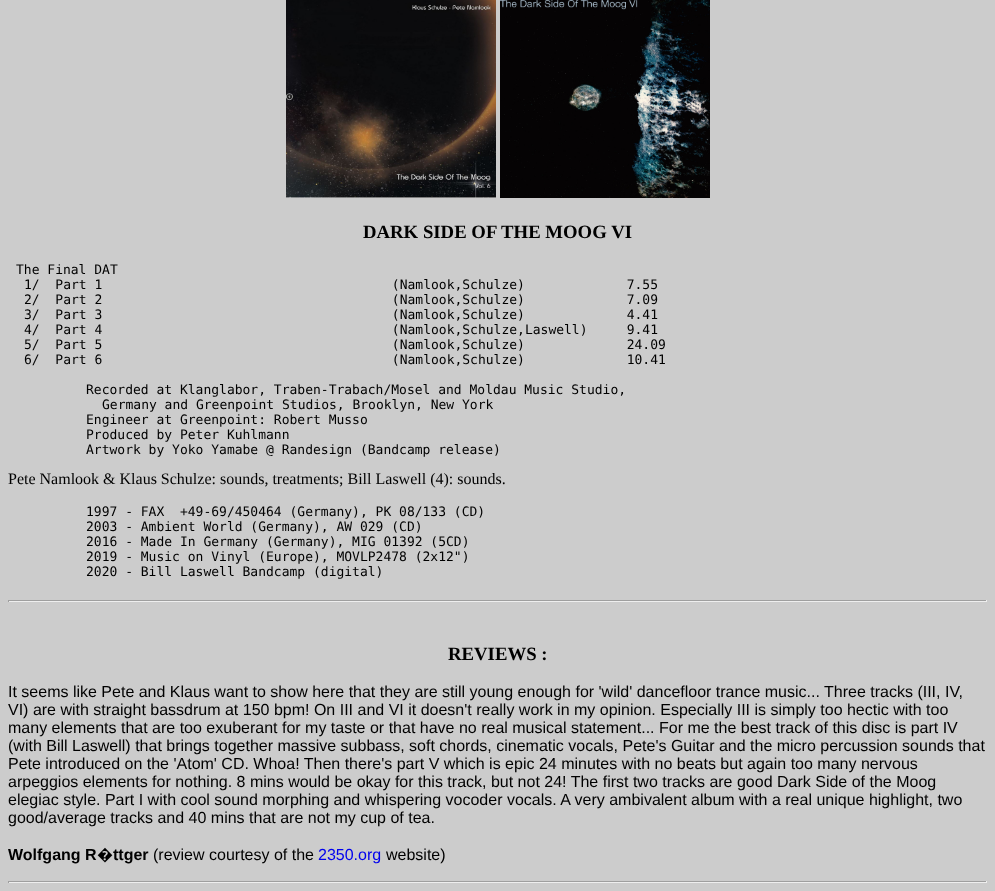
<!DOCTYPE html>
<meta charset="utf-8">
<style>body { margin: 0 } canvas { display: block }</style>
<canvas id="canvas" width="995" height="891"></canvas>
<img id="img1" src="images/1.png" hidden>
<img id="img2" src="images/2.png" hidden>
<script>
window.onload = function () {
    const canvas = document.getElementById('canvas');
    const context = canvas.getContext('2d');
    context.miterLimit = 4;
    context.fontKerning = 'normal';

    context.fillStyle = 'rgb(204, 204, 204)';
    context.fillRect(0, 0, 995, 891);
    context.drawImage(document.getElementById('img1'), 286, 0, 210, 198);
    context.drawImage(document.getElementById('img2'), 500, 0, 210, 198);
    context.fillStyle = 'rgb(159, 159, 159)';
    context.fillRect(8, 600, 979, 1);
    context.fillStyle = 'rgb(238, 238, 238)';
    context.fillRect(986, 600, 1, 2);
    context.fillRect(8, 601, 979, 1);
    context.fillStyle = 'rgb(159, 159, 159)';
    context.fillRect(8, 600, 1, 2);
    context.fillRect(8, 881, 979, 1);
    context.fillStyle = 'rgb(238, 238, 238)';
    context.fillRect(986, 881, 1, 2);
    context.fillRect(8, 882, 979, 1);
    context.fillStyle = 'rgb(159, 159, 159)';
    context.fillRect(8, 881, 1, 2);
    context.font = 'bold 18.75px Liberation Serif';
    context.fillStyle = 'rgb(0, 0, 0)';
    context.fillText('DARK SIDE OF THE MOOG VI', 363, 238);
    context.font = '13px DejaVu Sans Mono';
    context.fillText('The Final DAT', 16, 274);
    context.fillText('1/  Part 1                                     (Namlook,Schulze)             7.55', 24, 289);
    context.fillText('2/  Part 2                                     (Namlook,Schulze)             7.09', 24, 304);
    context.fillText('3/  Part 3                                     (Namlook,Schulze)             4.41', 24, 319);
    context.fillText('4/  Part 4                                     (Namlook,Schulze,Laswell)     9.41', 24, 334);
    context.fillText('5/  Part 5                                     (Namlook,Schulze)             24.09', 24, 349);
    context.fillText('6/  Part 6                                     (Namlook,Schulze)             10.41', 24, 364);
    context.fillText('Recorded at Klanglabor, Traben-Trabach/Mosel and Moldau Music Studio,', 86, 394);
    context.fillText('Germany and Greenpoint Studios, Brooklyn, New York', 102, 409);
    context.fillText('Engineer at Greenpoint: Robert Musso', 86, 424);
    context.fillText('Produced by Peter Kuhlmann', 86, 439);
    context.fillText('Artwork by Yoko Yamabe @ Randesign (Bandcamp release)', 86, 454);
    context.font = '16px Liberation Serif';
    context.fillText('Pete Namlook & Klaus Schulze: sounds, treatments; Bill Laswell (4): sounds.', 8, 484);
    context.font = '13px DejaVu Sans Mono';
    context.fillText('1997 - FAX  +49-69/450464 (Germany), PK 08/133 (CD)', 86, 516);
    context.fillText('2003 - Ambient World (Germany), AW 029 (CD)', 86, 531);
    context.fillText('2016 - Made In Germany (Germany), MIG 01392 (5CD)', 86, 546);
    context.fillText('2019 - Music on Vinyl (Europe), MOVLP2478 (2x12")', 86, 561);
    context.fillText('2020 - Bill Laswell Bandcamp (digital)', 86, 576);
    context.font = 'bold 18.75px Liberation Serif';
    context.fillText('REVIEWS :', 448, 660);
    context.font = '16px Liberation Sans';
    context.fillText('It seems like Pete and Klaus want to show here that they are still young enough for \'wild\' dancefloor trance music... Three tracks (III, IV,', 8, 697);
    context.fillText('VI) are with straight bassdrum at 150 bpm! On III and VI it doesn\'t really work in my opinion. Especially III is simply too hectic with too', 8, 715);
    context.fillText('many elements that are too exuberant for my taste or that have no real musical statement... For me the best track of this disc is part IV', 8, 733);
    context.fillText('(with Bill Laswell) that brings together massive subbass, soft chords, cinematic vocals, Pete\'s Guitar and the micro percussion sounds that', 8, 751);
    context.fillText('Pete introduced on the \'Atom\' CD. Whoa! Then there\'s part V which is epic 24 minutes with no beats but again too many nervous', 8, 769);
    context.fillText('arpeggios elements for nothing. 8 mins would be okay for this track, but not 24! The first two tracks are good Dark Side of the Moog', 8, 787);
    context.fillText('elegiac style. Part I with cool sound morphing and whispering vocoder vocals. A very ambivalent album with a real unique highlight, two', 8, 805);
    context.fillText('good/average tracks and 40 mins that are not my cup of tea.', 8, 823);
    context.font = 'bold 16px Liberation Sans';
    context.fillText('Wolfgang R', 8, 860);
    context.font = 'bold 16px Noto Sans';
    context.fillText('�', 97, 860);
    context.font = 'bold 16px Liberation Sans';
    context.fillText('ttger', 113, 860);
    context.font = '16px Liberation Sans';
    context.fillText('(review courtesy of the', 153, 860);
    context.fillStyle = 'rgb(0, 0, 238)';
    context.fillText('2350.org', 318, 860);
    context.fillStyle = 'rgb(0, 0, 0)';
    context.fillText('website)', 386, 860);
};
</script>
